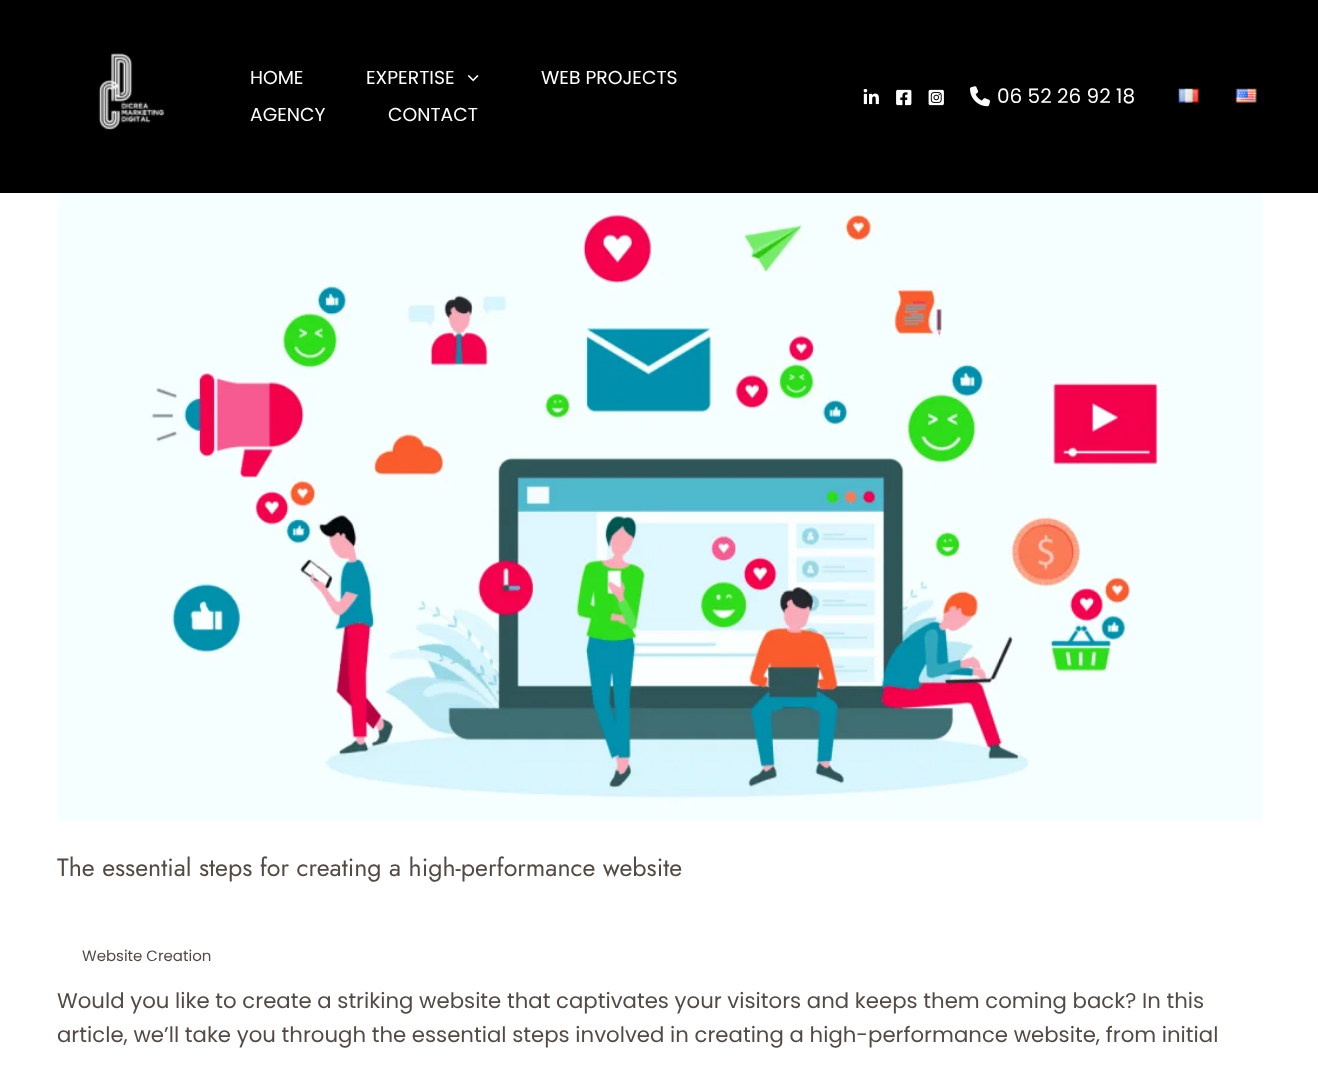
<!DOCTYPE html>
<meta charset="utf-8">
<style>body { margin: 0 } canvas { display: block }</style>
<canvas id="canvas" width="1318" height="1066"></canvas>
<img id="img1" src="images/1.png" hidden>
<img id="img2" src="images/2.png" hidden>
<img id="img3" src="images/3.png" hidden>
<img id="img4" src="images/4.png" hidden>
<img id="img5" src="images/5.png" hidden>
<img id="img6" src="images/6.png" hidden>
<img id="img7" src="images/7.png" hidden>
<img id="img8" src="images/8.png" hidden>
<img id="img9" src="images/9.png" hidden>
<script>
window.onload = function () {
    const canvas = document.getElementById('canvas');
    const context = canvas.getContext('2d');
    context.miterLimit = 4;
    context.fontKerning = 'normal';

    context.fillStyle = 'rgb(255, 255, 255)';
    context.fillRect(0, 0, 1318, 1066);
    context.fillStyle = 'rgb(0, 0, 0)';
    context.fillRect(0, 0, 1318, 193);
    context.drawImage(document.getElementById('img1'), 98, 53, 67, 77);
    context.drawImage(document.getElementById('img2'), 468, 75, 11, 7);
    context.drawImage(document.getElementById('img3'), 863, 89, 16, 16);
    context.drawImage(document.getElementById('img4'), 896, 89, 16, 17);
    context.drawImage(document.getElementById('img5'), 928, 89, 16, 17);
    context.drawImage(document.getElementById('img6'), 970, 86, 20, 21);
    context.drawImage(document.getElementById('img7'), 1178, 88, 21, 15);
    context.drawImage(document.getElementById('img8'), 1235, 88, 22, 15);
    context.drawImage(document.getElementById('img9'), 57, 193, 1206, 627);
    context.font = '18.75px Poppins';
    context.fillStyle = 'rgb(255, 255, 255)';
    context.fillText('HOME', 250, 84);
    context.fillText('EXPERTISE', 366, 84);
    context.fillText('WEB PROJECTS', 541, 84);
    context.fillText('AGENCY', 250, 121);
    context.fillText('CONTACT', 388, 121);
    context.font = '20px Poppins';
    context.fillText('06 52 26 92 18', 997, 103);
    context.font = '25px Jost';
    context.fillStyle = 'rgb(83, 74, 69)';
    context.fillText('The essential steps for creating a high-performance website', 57, 876);
    context.font = '15px Poppins';
    context.fillText('Website Creation', 82, 961);
    context.font = '21.25px Poppins';
    context.fillText('Would you like to create a striking website that captivates your visitors and keeps them coming back? In this', 57, 1008);
    context.fillText('article, we’ll take you through the essential steps involved in creating a high-performance website, from initial', 57, 1042);
};
</script>
